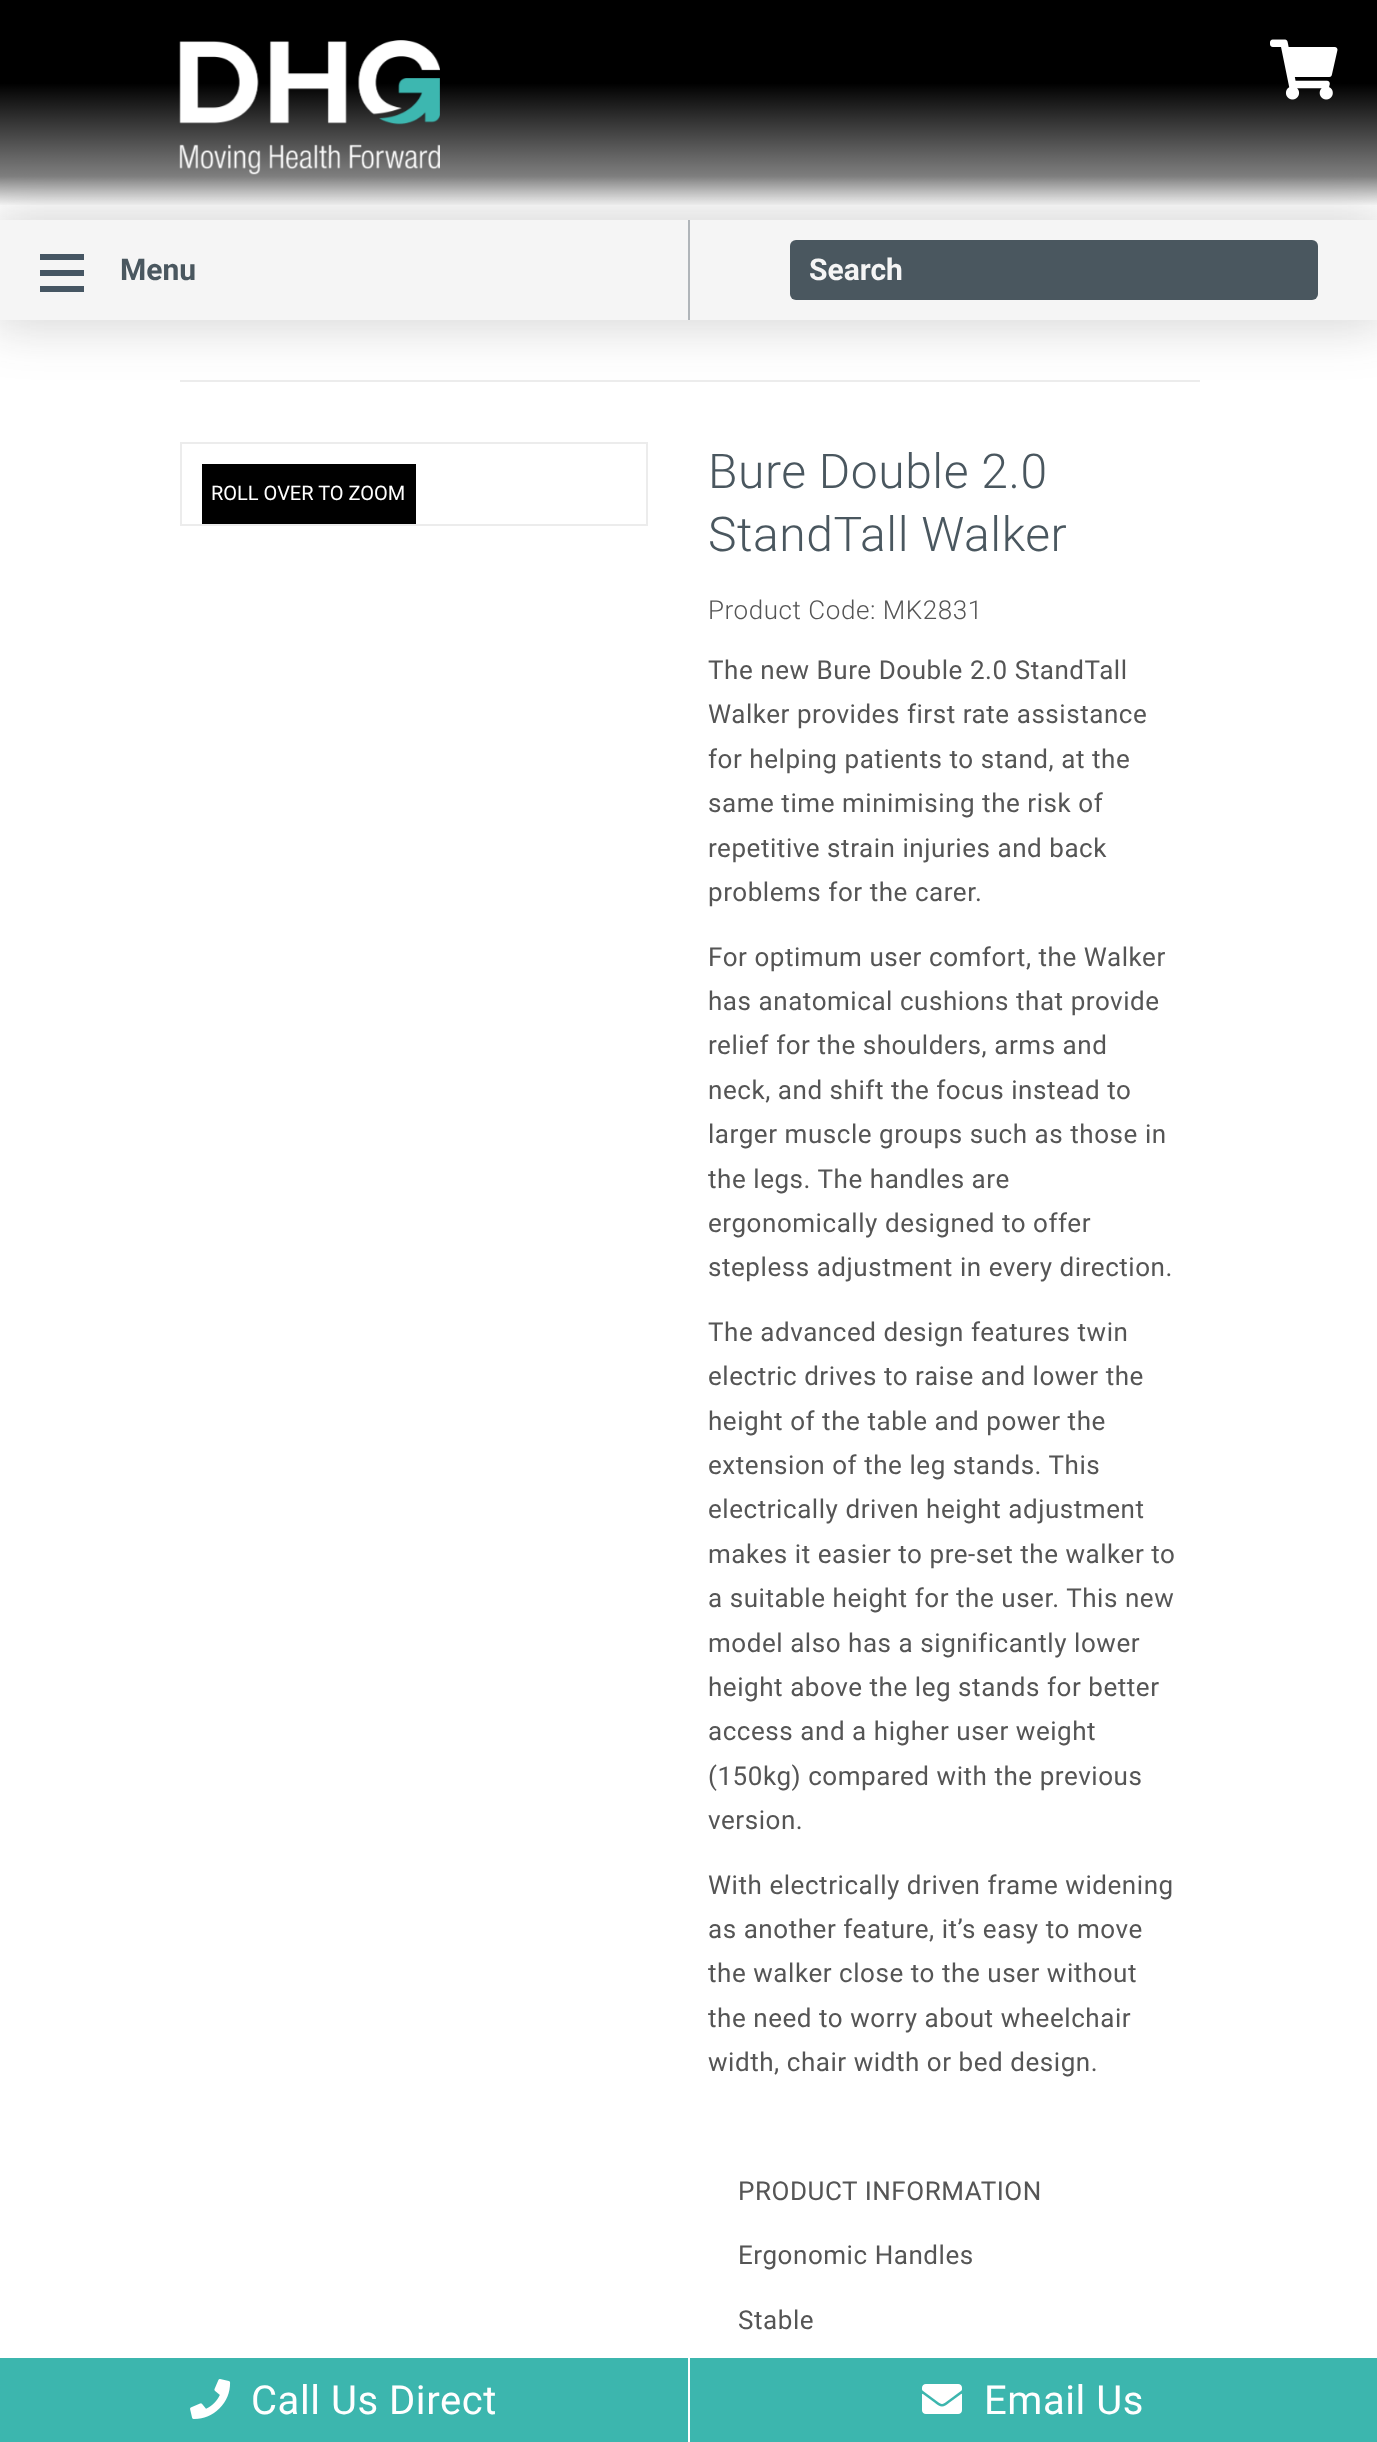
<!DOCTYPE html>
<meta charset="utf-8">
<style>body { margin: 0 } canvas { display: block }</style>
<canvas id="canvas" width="1377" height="2442"></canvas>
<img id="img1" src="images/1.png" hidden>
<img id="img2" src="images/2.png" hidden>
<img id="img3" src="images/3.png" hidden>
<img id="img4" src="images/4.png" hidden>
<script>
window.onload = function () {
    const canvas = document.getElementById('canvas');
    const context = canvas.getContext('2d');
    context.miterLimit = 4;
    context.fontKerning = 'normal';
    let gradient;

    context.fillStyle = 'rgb(255, 255, 255)';
    context.fillRect(0, 0, 1377, 2442);
    context.fillStyle = 'rgb(236, 236, 236)';
    context.fillRect(180, 380, 1020, 2);
    context.fillStyle = 'rgba(50, 50, 50, 0.19)';
    context.filter = 'blur(25px)';
    context.beginPath();
    context.rect(-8, 212, 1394, 116);
    context.fill();
    context.filter = 'none';
    gradient = context.createLinearGradient(689, 20, 689, 206);
    gradient.addColorStop(0.34, 'rgb(0, 0, 0)');
    gradient.addColorStop(0.84, 'rgba(0, 0, 0, 0.5)');
    gradient.addColorStop(1, 'rgba(0, 0, 0, 0)');
    context.fillStyle = gradient;
    context.fillRect(0, 20, 1377, 185);
    context.fillStyle = 'rgb(0, 0, 0)';
    context.fillRect(0, 0, 1377, 20);
    context.drawImage(document.getElementById('img1'), 179, 40, 261, 135);
    context.drawImage(document.getElementById('img2'), 1270, 39, 68, 61);
    context.fillStyle = 'rgb(245, 245, 245)';
    context.fillRect(0, 220, 1377, 100);
    context.fillStyle = 'rgb(176, 181, 185)';
    context.fillRect(688, 220, 2, 100);
    context.fillStyle = 'rgb(70, 86, 99)';
    context.fillRect(40, 270, 44, 6);
    context.fillRect(40, 254, 44, 6);
    context.fillRect(40, 286, 44, 6);
    context.fillStyle = 'rgb(74, 87, 95)';
    context.beginPath();
    context.roundRect(790, 240, 528, 60, 6);
    context.fill();
    context.strokeStyle = 'rgb(236, 236, 236)';
    context.lineWidth = 2;
    context.strokeRect(181, 443, 466, 82);
    context.fillStyle = 'rgb(0, 0, 0)';
    context.fillRect(202, 464, 214, 60);
    context.fillStyle = 'rgb(60, 182, 174)';
    context.fillRect(0, 2358, 688, 84);
    context.drawImage(document.getElementById('img3'), 190, 2379, 41, 40);
    context.fillRect(690, 2358, 687, 84);
    context.drawImage(document.getElementById('img4'), 922, 2384, 40, 30);
    context.font = 'bold 30px Roboto';
    context.fillStyle = 'rgb(74, 87, 95)';
    context.fillText('Menu', 120, 280);
    context.fillStyle = 'rgb(245, 245, 245)';
    context.fillText('Search', 809, 280);
    context.font = '20px Roboto';
    context.fillStyle = 'rgb(255, 255, 255)';
    context.fillText('ROLL OVER TO ZOOM', 211, 500);
    context.letterSpacing = '0.55px';
    context.font = '300 48px Roboto';
    context.fillStyle = 'rgb(74, 87, 95)';
    context.fillText('Bure Double 2.0', 708, 488);
    context.fillText('StandTall Walker', 708, 551);
    context.font = '300 26px Roboto';
    context.fillStyle = 'rgb(85, 85, 85)';
    context.fillText('Product Code: MK2831', 708, 619);
    context.font = '26px Roboto';
    context.fillText('The new Bure Double 2.0 StandTall', 708, 679);
    context.fillText('Walker provides first rate assistance', 708, 723);
    context.fillText('for helping patients to stand, at the', 708, 768);
    context.fillText('same time minimising the risk of', 708, 812);
    context.fillText('repetitive strain injuries and back', 708, 857);
    context.fillText('problems for the carer.', 708, 901);
    context.fillText('For optimum user comfort, the Walker', 708, 966);
    context.fillText('has anatomical cushions that provide', 708, 1010);
    context.fillText('relief for the shoulders, arms and', 708, 1054);
    context.fillText('neck, and shift the focus instead to', 708, 1099);
    context.fillText('larger muscle groups such as those in', 708, 1143);
    context.fillText('the legs. The handles are', 708, 1188);
    context.fillText('ergonomically designed to offer', 708, 1232);
    context.fillText('stepless adjustment in every direction.', 708, 1276);
    context.fillText('The advanced design features twin', 708, 1341);
    context.fillText('electric drives to raise and lower the', 708, 1385);
    context.fillText('height of the table and power the', 708, 1430);
    context.fillText('extension of the leg stands. This', 708, 1474);
    context.fillText('electrically driven height adjustment', 708, 1518);
    context.fillText('makes it easier to pre-set the walker to', 708, 1563);
    context.fillText('a suitable height for the user. This new', 708, 1607);
    context.fillText('model also has a significantly lower', 708, 1652);
    context.fillText('height above the leg stands for better', 708, 1696);
    context.fillText('access and a higher user weight', 708, 1740);
    context.fillText('(150kg) compared with the previous', 708, 1785);
    context.fillText('version.', 708, 1829);
    context.fillText('With electrically driven frame widening', 708, 1894);
    context.fillText('as another feature, it’s easy to move', 708, 1938);
    context.fillText('the walker close to the user without', 708, 1982);
    context.fillText('the need to worry about wheelchair', 708, 2027);
    context.fillText('width, chair width or bed design.', 708, 2071);
    context.fillText('PRODUCT INFORMATION', 738, 2200);
    context.fillText('Ergonomic Handles', 738, 2264);
    context.fillText('Stable', 738, 2329);
    context.font = '40px Roboto';
    context.fillStyle = 'rgb(255, 255, 255)';
    context.fillText('Call Us Direct', 251, 2414);
    context.fillText('Email Us', 984, 2414);
};
</script>
